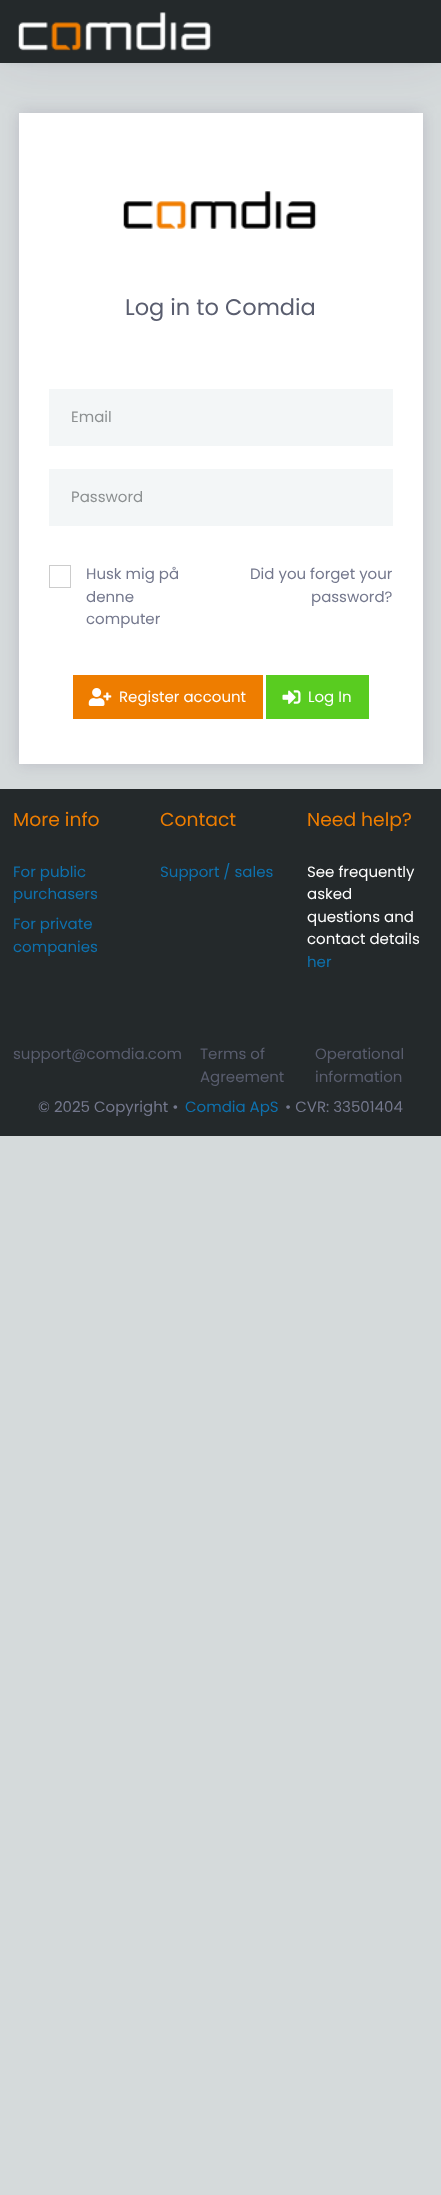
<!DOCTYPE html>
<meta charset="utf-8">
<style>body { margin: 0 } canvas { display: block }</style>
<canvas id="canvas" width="441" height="2195"></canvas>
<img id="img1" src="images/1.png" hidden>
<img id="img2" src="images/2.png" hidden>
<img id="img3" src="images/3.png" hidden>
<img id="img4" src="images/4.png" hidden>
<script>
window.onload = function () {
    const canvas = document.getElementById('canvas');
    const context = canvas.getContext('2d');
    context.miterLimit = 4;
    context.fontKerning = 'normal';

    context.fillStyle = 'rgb(213, 218, 219)';
    context.fillRect(0, 0, 441, 2195);
    context.fillStyle = 'rgba(82, 63, 105, 0.2)';
    context.filter = 'blur(8px)';
    context.beginPath();
    context.rect(19, 113, 404, 651);
    context.fill();
    context.filter = 'none';
    context.fillStyle = 'rgb(255, 255, 255)';
    context.fillRect(19, 113, 404, 651);
    context.fillStyle = 'rgba(82, 63, 105, 0.1)';
    context.filter = 'blur(25px)';
    context.beginPath();
    context.rect(0, 0, 441, 63);
    context.fill();
    context.filter = 'none';
    context.fillStyle = 'rgba(0, 0, 0, 0.1)';
    context.filter = 'blur(5.5px)';
    context.beginPath();
    context.rect(4, 5, 434, 55);
    context.fill();
    context.filter = 'none';
    context.fillStyle = 'rgb(36, 41, 43)';
    context.fillRect(0, 0, 441, 63);
    context.drawImage(document.getElementById('img1'), 18, 12, 194, 39);
    context.drawImage(document.getElementById('img2'), 123, 191, 194, 38);
    context.fillStyle = 'rgb(243, 246, 247)';
    context.fillRect(49, 389, 344, 57);
    context.fillRect(49, 469, 344, 57);
    context.strokeStyle = 'rgb(204, 204, 204)';
    context.strokeRect(49.5, 565.5, 21, 22);
    context.fillStyle = 'rgb(238, 125, 0)';
    context.fillRect(73, 675, 190, 44);
    context.drawImage(document.getElementById('img3'), 88, 688, 24, 18);
    context.fillStyle = 'rgb(89, 204, 32)';
    context.fillRect(266, 675, 103, 44);
    context.drawImage(document.getElementById('img4'), 282, 690, 19, 14);
    context.fillStyle = 'rgb(36, 41, 43)';
    context.fillRect(0, 789, 441, 347);
    context.font = '22.5px Poppins';
    context.fillStyle = 'rgb(89, 93, 110)';
    context.fillText('Log in to Comdia', 125, 315);
    context.font = '15px Poppins';
    context.fillStyle = 'rgb(140, 144, 145)';
    context.fillText('Email', 71, 422);
    context.fillText('Password', 71, 502);
    context.fillStyle = 'rgb(116, 120, 141)';
    context.fillText('Husk mig på', 86, 579);
    context.fillText('denne', 86, 602);
    context.fillText('computer', 86, 624);
    context.fillText('Did you forget your', 250, 579);
    context.fillText('password?', 311, 602);
    context.fillStyle = 'rgb(255, 255, 255)';
    context.fillText('Register account', 119, 702);
    context.fillText('Log In', 308, 702);
    context.font = '18.75px Poppins';
    context.fillStyle = 'rgb(238, 125, 0)';
    context.fillText('More info', 13, 826);
    context.font = '15px Poppins';
    context.fillStyle = 'rgb(14, 113, 174)';
    context.fillText('For public', 13, 877);
    context.fillText('purchasers', 13, 899);
    context.fillText('For private', 13, 929);
    context.fillText('companies', 13, 952);
    context.font = '18.75px Poppins';
    context.fillStyle = 'rgb(238, 125, 0)';
    context.fillText('Contact', 160, 826);
    context.font = '15px Poppins';
    context.fillStyle = 'rgb(14, 113, 174)';
    context.fillText('Support / sales', 160, 877);
    context.font = '18.75px Poppins';
    context.fillStyle = 'rgb(238, 125, 0)';
    context.fillText('Need help?', 307, 826);
    context.font = '15px Poppins';
    context.fillStyle = 'rgb(255, 255, 255)';
    context.fillText('See frequently', 307, 877);
    context.fillText('asked', 307, 899);
    context.fillText('questions and', 307, 922);
    context.fillText('contact details', 307, 944);
    context.fillStyle = 'rgb(14, 113, 174)';
    context.fillText('her', 307, 967);
    context.fillStyle = 'rgb(89, 93, 110)';
    context.fillText('support@comdia.com', 13, 1059);
    context.fillText('Terms of', 200, 1059);
    context.fillText('Agreement', 200, 1082);
    context.fillText('Operational', 315, 1059);
    context.fillText('information', 315, 1082);
    context.fillStyle = 'rgb(116, 120, 141)';
    context.fillText('© 2025 Copyright •', 38, 1112);
    context.fillStyle = 'rgb(14, 113, 174)';
    context.fillText('Comdia ApS', 185, 1112);
    context.fillStyle = 'rgb(116, 120, 141)';
    context.fillText('• CVR: 33501404', 285, 1112);
};
</script>
